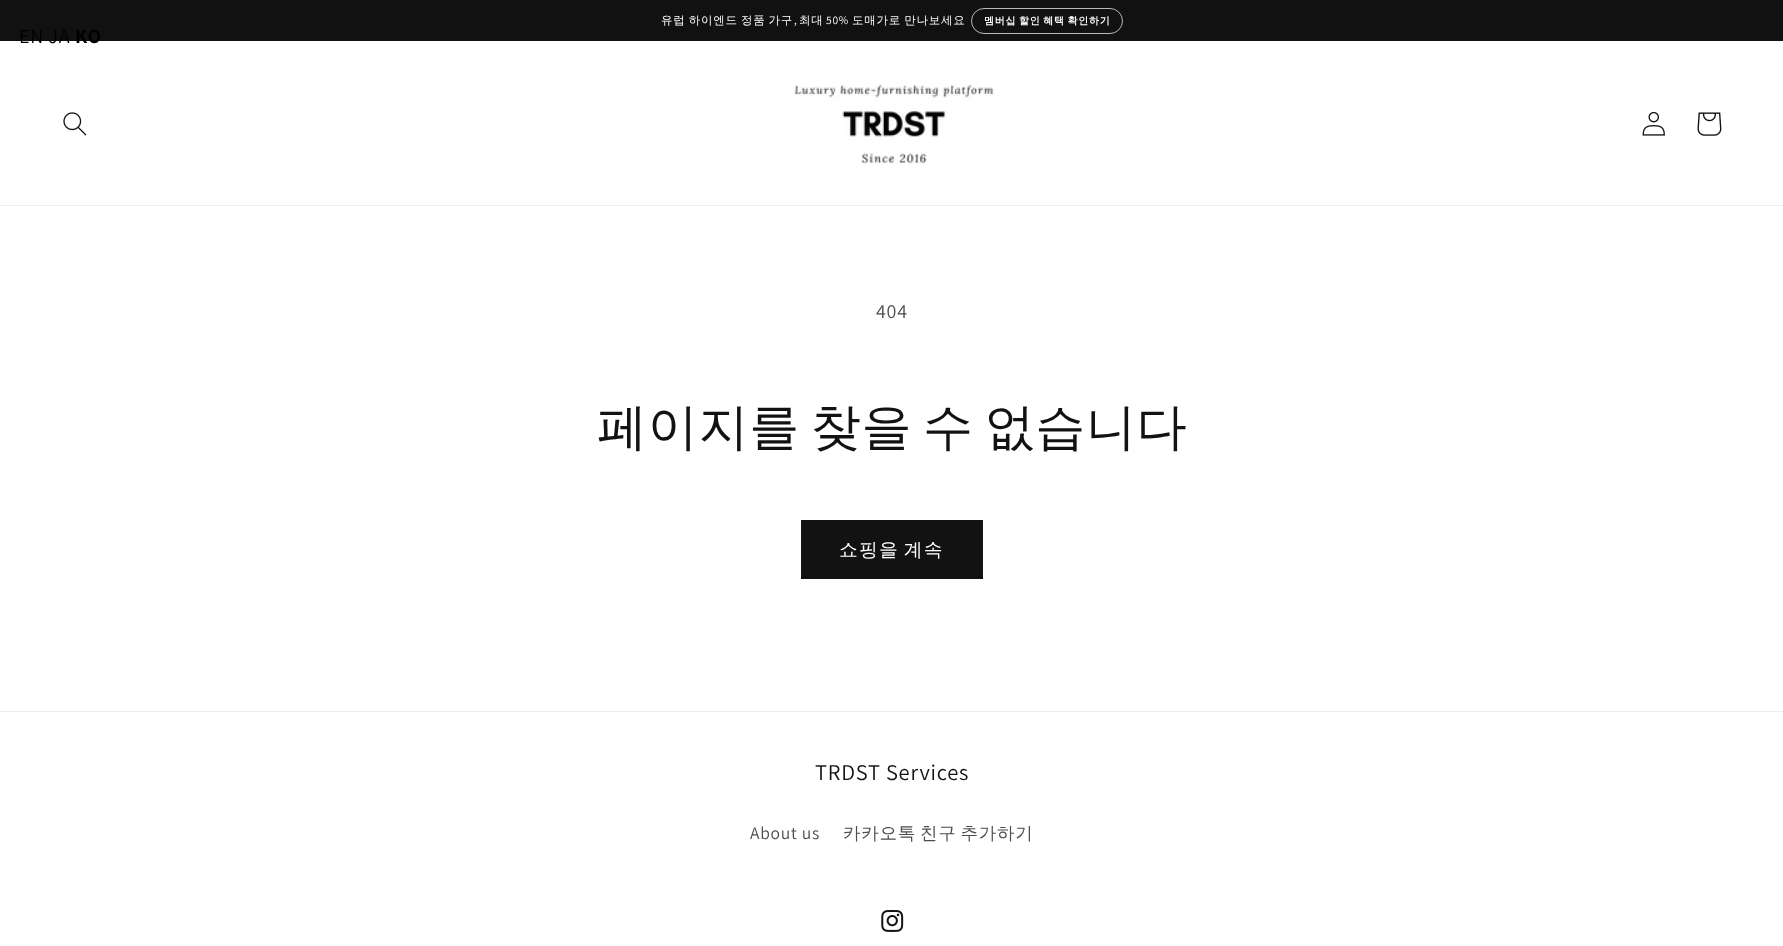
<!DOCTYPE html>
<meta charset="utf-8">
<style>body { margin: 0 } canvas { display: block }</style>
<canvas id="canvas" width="1783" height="946"></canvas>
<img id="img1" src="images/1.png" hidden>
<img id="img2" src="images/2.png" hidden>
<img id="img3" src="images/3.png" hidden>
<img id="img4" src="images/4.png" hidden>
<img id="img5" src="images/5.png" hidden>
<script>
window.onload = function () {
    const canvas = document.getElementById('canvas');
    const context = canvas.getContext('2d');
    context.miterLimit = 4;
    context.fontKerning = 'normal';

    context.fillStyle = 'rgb(255, 255, 255)';
    context.fillRect(0, 0, 1783, 946);
    context.fillStyle = 'rgb(17, 17, 17)';
    context.fillRect(0, 0, 1783, 41);
    context.beginPath();
    context.roundRect(971.5, 8.5, 151, 25, 12.5);
    context.strokeStyle = 'rgb(184, 184, 184)';
    context.stroke();
    context.fillStyle = 'rgb(236, 236, 236)';
    context.fillRect(0, 205, 1783, 1);
    context.drawImage(document.getElementById('img1'), 63, 112, 24, 24);
    context.drawImage(document.getElementById('img2'), 794, 84, 201, 82);
    context.drawImage(document.getElementById('img3'), 1642, 111, 23, 25);
    context.drawImage(document.getElementById('img4'), 1697, 112, 25, 24);
    context.fillStyle = 'rgb(18, 18, 18)';
    context.fillRect(801, 520, 182, 59);
    context.fillStyle = 'rgb(236, 236, 236)';
    context.fillRect(0, 711, 1783, 1);
    context.drawImage(document.getElementById('img5'), 881, 910, 23, 22);
    context.letterSpacing = '0.75px';
    context.wordSpacing = '-1px';
    context.font = '500 11.5px WenQuanYi Zen Hei';
    context.fillStyle = 'rgb(255, 255, 255)';
    context.fillText('유럽 하이엔드 정품 가구', 661, 24);
    context.wordSpacing = '0px';
    context.font = '11.5px Assistant';
    context.fillText(',', 794, 24);
    context.font = '500 11.5px WenQuanYi Zen Hei';
    context.fillText('최대', 799, 24);
    context.font = '11.5px Assistant';
    context.fillText('50%', 826, 24);
    context.wordSpacing = '-1px';
    context.font = '500 11.5px WenQuanYi Zen Hei';
    context.fillText('도매가로 만나보세요', 852, 24);
    context.font = 'bold 10px WenQuanYi Zen Hei';
    context.fillText('멤버십 할인 혜택 확인하기', 984, 24);
    context.wordSpacing = '0px';
    context.font = '20px Assistant';
    context.fillStyle = 'rgb(0, 0, 0)';
    context.fillText('EN JA', 19, 43);
    context.font = 'bold 20px Assistant';
    context.fillText('KO', 75, 43);
    context.font = '20px Assistant';
    context.fillStyle = 'rgb(77, 77, 77)';
    context.fillText('404', 876, 318);
    context.wordSpacing = '-5px';
    context.font = '500 50px WenQuanYi Zen Hei';
    context.fillStyle = 'rgb(18, 18, 18)';
    context.fillText('페이지를 찾을 수 없습니다', 597, 444);
    context.letterSpacing = '1.25px';
    context.wordSpacing = '-2px';
    context.font = '500 18.75px WenQuanYi Zen Hei';
    context.fillStyle = 'rgb(255, 255, 255)';
    context.fillText('쇼핑을 계속', 839, 556);
    context.letterSpacing = '0.75px';
    context.wordSpacing = '0px';
    context.font = '22.5px Assistant';
    context.fillStyle = 'rgb(18, 18, 18)';
    context.fillText('TRDST Services', 815, 780);
    context.font = '17.5px Assistant';
    context.fillStyle = 'rgb(77, 77, 77)';
    context.fillText('About us', 750, 839);
    context.wordSpacing = '-2px';
    context.font = '500 17.5px WenQuanYi Zen Hei';
    context.fillText('카카오톡 친구 추가하기', 843, 839);
};
</script>
